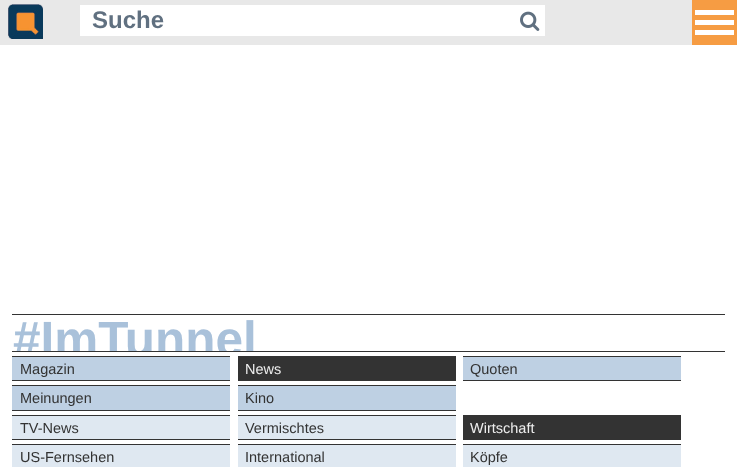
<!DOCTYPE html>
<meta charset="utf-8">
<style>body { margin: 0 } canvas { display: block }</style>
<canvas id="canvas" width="737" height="467"></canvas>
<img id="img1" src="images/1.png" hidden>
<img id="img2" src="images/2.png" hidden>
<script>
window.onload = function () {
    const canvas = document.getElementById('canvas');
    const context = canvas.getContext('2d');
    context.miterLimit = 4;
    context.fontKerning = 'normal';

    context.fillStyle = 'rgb(255, 255, 255)';
    context.fillRect(0, 0, 737, 467);
    context.fillStyle = 'rgb(232, 232, 232)';
    context.fillRect(0, 0, 692, 45);
    context.drawImage(document.getElementById('img1'), 8, 4, 35, 35);
    context.fillStyle = 'rgb(255, 255, 255)';
    context.fillRect(80, 5, 465, 31);
    context.drawImage(document.getElementById('img2'), 520, 11, 20, 20);
    context.fillStyle = 'rgb(246, 156, 67)';
    context.fillRect(692, 0, 45, 45);
    context.fillStyle = 'rgb(255, 255, 255)';
    context.fillRect(695, 10, 39, 5);
    context.fillRect(695, 20, 39, 5);
    context.fillRect(695, 30, 39, 5);
    context.fillStyle = 'rgb(51, 51, 51)';
    context.fillRect(12, 314, 713, 1);
    context.fillRect(12, 351, 713, 1);
    context.fillStyle = 'rgb(190, 208, 227)';
    context.fillRect(12, 357, 218, 23);
    context.fillStyle = 'rgb(51, 51, 51)';
    context.fillRect(12, 356, 218, 1);
    context.fillRect(12, 380, 218, 1);
    context.fillRect(238, 356, 218, 25);
    context.fillStyle = 'rgb(190, 208, 227)';
    context.fillRect(463, 357, 218, 23);
    context.fillStyle = 'rgb(51, 51, 51)';
    context.fillRect(463, 356, 218, 1);
    context.fillRect(463, 380, 218, 1);
    context.fillStyle = 'rgb(190, 208, 227)';
    context.fillRect(12, 386, 218, 24);
    context.fillStyle = 'rgb(51, 51, 51)';
    context.fillRect(12, 385, 218, 1);
    context.fillRect(12, 410, 218, 1);
    context.fillStyle = 'rgb(190, 208, 227)';
    context.fillRect(238, 386, 218, 24);
    context.fillStyle = 'rgb(51, 51, 51)';
    context.fillRect(238, 385, 218, 1);
    context.fillRect(238, 410, 218, 1);
    context.fillStyle = 'rgb(223, 232, 241)';
    context.fillRect(12, 416, 218, 23);
    context.fillStyle = 'rgb(51, 51, 51)';
    context.fillRect(12, 415, 218, 1);
    context.fillRect(12, 439, 218, 1);
    context.fillStyle = 'rgb(223, 232, 241)';
    context.fillRect(238, 416, 218, 23);
    context.fillStyle = 'rgb(51, 51, 51)';
    context.fillRect(238, 415, 218, 1);
    context.fillRect(238, 439, 218, 1);
    context.fillRect(463, 415, 218, 25);
    context.fillStyle = 'rgb(223, 232, 241)';
    context.fillRect(12, 445, 218, 22);
    context.fillStyle = 'rgb(51, 51, 51)';
    context.fillRect(12, 444, 218, 1);
    context.fillStyle = 'rgb(223, 232, 241)';
    context.fillRect(238, 445, 218, 22);
    context.fillStyle = 'rgb(51, 51, 51)';
    context.fillRect(238, 444, 218, 1);
    context.fillStyle = 'rgb(223, 232, 241)';
    context.fillRect(463, 445, 218, 22);
    context.fillStyle = 'rgb(51, 51, 51)';
    context.fillRect(463, 444, 218, 1);
    context.font = 'bold 24px Liberation Sans';
    context.fillStyle = 'rgb(96, 112, 128)';
    context.fillText('Suche', 92, 28);
    context.save();
    context.beginPath();
    context.rect(12, 315, 713, 36);
    context.clip();
    context.font = 'bold 49.5px Liberation Sans';
    context.fillStyle = 'rgb(169, 193, 218)';
    context.fillText('#ImTunnel', 13, 356);
    context.restore();
    context.font = '14.5px Liberation Sans';
    context.fillStyle = 'rgb(51, 51, 51)';
    context.fillText('Magazin', 20, 374);
    context.fillStyle = 'rgb(238, 238, 238)';
    context.fillText('News', 245, 374);
    context.fillStyle = 'rgb(51, 51, 51)';
    context.fillText('Quoten', 470, 374);
    context.fillText('Meinungen', 20, 403);
    context.fillText('Kino', 245, 403);
    context.fillText('TV-News', 20, 433);
    context.fillText('Vermischtes', 245, 433);
    context.fillStyle = 'rgb(238, 238, 238)';
    context.fillText('Wirtschaft', 470, 433);
    context.fillStyle = 'rgb(51, 51, 51)';
    context.fillText('US-Fernsehen', 20, 462);
    context.fillText('International', 245, 462);
    context.fillText('Köpfe', 470, 462);
};
</script>
